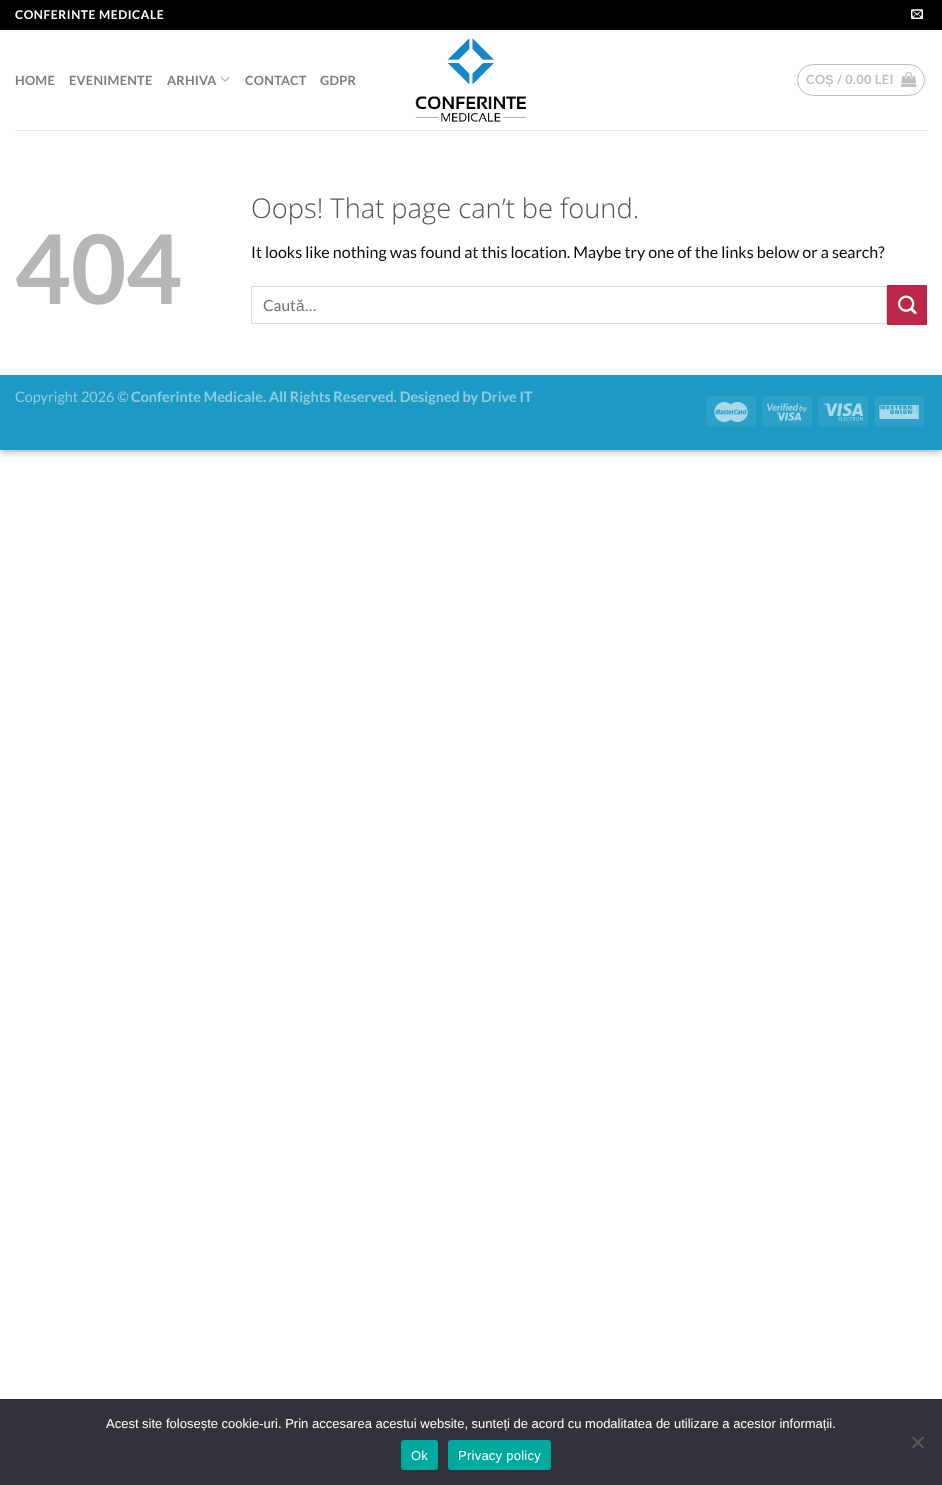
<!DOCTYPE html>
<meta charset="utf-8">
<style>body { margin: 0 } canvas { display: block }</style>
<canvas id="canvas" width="942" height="1485"></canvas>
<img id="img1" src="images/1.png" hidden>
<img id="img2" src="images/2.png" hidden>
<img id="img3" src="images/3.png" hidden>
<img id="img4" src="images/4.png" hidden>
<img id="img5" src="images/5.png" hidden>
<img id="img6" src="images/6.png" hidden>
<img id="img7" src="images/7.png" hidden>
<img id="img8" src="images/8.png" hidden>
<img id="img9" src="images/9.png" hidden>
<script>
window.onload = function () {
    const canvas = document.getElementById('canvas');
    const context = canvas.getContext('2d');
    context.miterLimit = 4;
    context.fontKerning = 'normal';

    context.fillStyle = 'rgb(255, 255, 255)';
    context.fillRect(0, 0, 942, 1485);
    context.save();
    context.beginPath();
    context.rect(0, 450, 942, 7);
    context.clip();
    context.fillStyle = 'rgba(0, 0, 0, 0.23)';
    context.filter = 'blur(3px)';
    context.beginPath();
    context.rect(0, 3, 942, 450);
    context.fill();
    context.filter = 'none';
    context.restore();
    context.save();
    context.beginPath();
    context.rect(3, 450, 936, 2);
    context.clip();
    context.fillStyle = 'rgba(0, 0, 0, 0.16)';
    context.filter = 'blur(3px)';
    context.beginPath();
    context.rect(4, 7, 934, 442);
    context.fill();
    context.filter = 'none';
    context.restore();
    context.fillStyle = 'rgb(0, 0, 0)';
    context.fillRect(0, 0, 942, 30);
    context.drawImage(document.getElementById('img1'), 911, 9, 12, 10);
    context.drawImage(document.getElementById('img2'), 220, 76, 10, 6);
    context.drawImage(document.getElementById('img3'), 415, 38, 112, 84);
    context.beginPath();
    context.roundRect(797.5, 64.5, 127, 31, 15.5);
    context.strokeStyle = 'rgb(192, 192, 192)';
    context.stroke();
    context.drawImage(document.getElementById('img4'), 901, 71, 16, 17);
    context.fillStyle = 'rgb(231, 231, 231)';
    context.fillRect(15, 130, 912, 1);
    context.strokeStyle = 'rgb(221, 221, 221)';
    context.strokeRect(251.5, 286.5, 635, 37);
    context.fillStyle = 'rgb(187, 38, 73)';
    context.beginPath();
    context.rect(887.5, 285.5, 39, 39);
    context.fill();
    context.strokeStyle = 'rgb(178, 36, 69)';
    context.stroke();
    context.drawImage(document.getElementById('img5'), 898, 295, 19, 20);
    context.fillStyle = 'rgb(29, 154, 196)';
    context.fillRect(0, 375, 942, 75);
    context.fillStyle = 'rgb(43, 160, 200)';
    context.beginPath();
    context.roundRect(706, 396, 50, 31, 5);
    context.fill();
    context.drawImage(document.getElementById('img6'), 714, 402, 34, 20);
    context.beginPath();
    context.roundRect(762, 396, 50, 31, 5);
    context.fill();
    context.drawImage(document.getElementById('img7'), 767, 403, 40, 18);
    context.beginPath();
    context.roundRect(818, 396, 50, 31, 5);
    context.fill();
    context.drawImage(document.getElementById('img8'), 823, 403, 40, 18);
    context.beginPath();
    context.roundRect(874, 396, 50, 31, 5);
    context.fill();
    context.drawImage(document.getElementById('img9'), 879, 405, 40, 14);
    context.fillStyle = 'rgb(50, 50, 58)';
    context.fillRect(0, 1399, 942, 86);
    context.fillStyle = 'rgb(89, 89, 93)';
    context.beginPath();
    context.moveTo(922.5, 1436.5);
    context.lineTo(924, 1438);
    context.lineTo(913.5, 1448.5);
    context.lineTo(912, 1447);
    context.closePath();
    context.fill();
    context.beginPath();
    context.moveTo(912, 1438);
    context.lineTo(913.5, 1436.5);
    context.lineTo(924, 1447);
    context.lineTo(922.5, 1448.5);
    context.closePath();
    context.fill();
    context.fillStyle = 'rgb(0, 169, 157)';
    context.beginPath();
    context.roundRect(401, 1440, 37, 30, 3);
    context.fill();
    context.beginPath();
    context.roundRect(448, 1440, 103, 30, 3);
    context.fill();
    context.letterSpacing = '0.6px';
    context.font = 'bold 12px Lato';
    context.fillStyle = 'rgb(255, 255, 255)';
    context.fillText('CONFERINTE MEDICALE', 15, 19);
    context.letterSpacing = '0.25px';
    context.font = 'bold 12.75px Lato';
    context.fillStyle = 'rgb(125, 125, 125)';
    context.fillText('HOME', 15, 85);
    context.fillText('EVENIMENTE', 69, 85);
    context.fillText('ARHIVA', 167, 85);
    context.fillText('CONTACT', 245, 85);
    context.fillText('GDPR', 320, 85);
    context.letterSpacing = '0.4px';
    context.fillStyle = 'rgb(192, 192, 192)';
    context.fillText('CO', 806, 84);
    context.font = 'bold 12.75px Liberation Sans';
    context.fillText('Ș', 825, 84);
    context.font = 'bold 12.75px Lato';
    context.fillText('/ 0.00 LEI', 837, 84);
    context.letterSpacing = '0px';
    context.font = 'bold 96px Lato';
    context.fillStyle = 'rgb(182, 182, 182)';
    context.fillText('404', 15, 304);
    context.font = '300 27.25px Open Sans';
    context.fillStyle = 'rgb(85, 85, 85)';
    context.fillText('Oops! That page can’t be found.', 251, 218);
    context.font = '16px Lato';
    context.fillStyle = 'rgb(10, 10, 10)';
    context.fillText('It looks like nothing was found at this location. Maybe try one of the links below or a search?', 251, 258);
    context.font = '15.5px Lato';
    context.fillStyle = 'rgb(117, 117, 117)';
    context.fillText('Caut', 263, 311);
    context.font = '15.5px Liberation Sans';
    context.fillText('ă', 296, 311);
    context.font = '15.5px Lato';
    context.fillText('…', 305, 311);
    context.font = '14.4px Lato';
    context.fillStyle = 'rgb(142, 205, 226)';
    context.fillText('Copyright 2026 ©', 15, 402);
    context.font = 'bold 14.4px Lato';
    context.fillText('Conferinte Medicale. All Rights Reserved. Designed by Drive IT', 131, 402);
    context.font = '13px Liberation Sans';
    context.fillStyle = 'rgb(255, 255, 255)';
    context.fillText('Acest site folosește cookie-uri. Prin accesarea acestui website, sunteți de acord cu modalitatea de utilizare a acestor informații.', 106, 1428);
    context.letterSpacing = '0.25px';
    context.fillText('Ok', 411, 1460);
    context.fillText('Privacy policy', 458, 1460);
};
</script>
